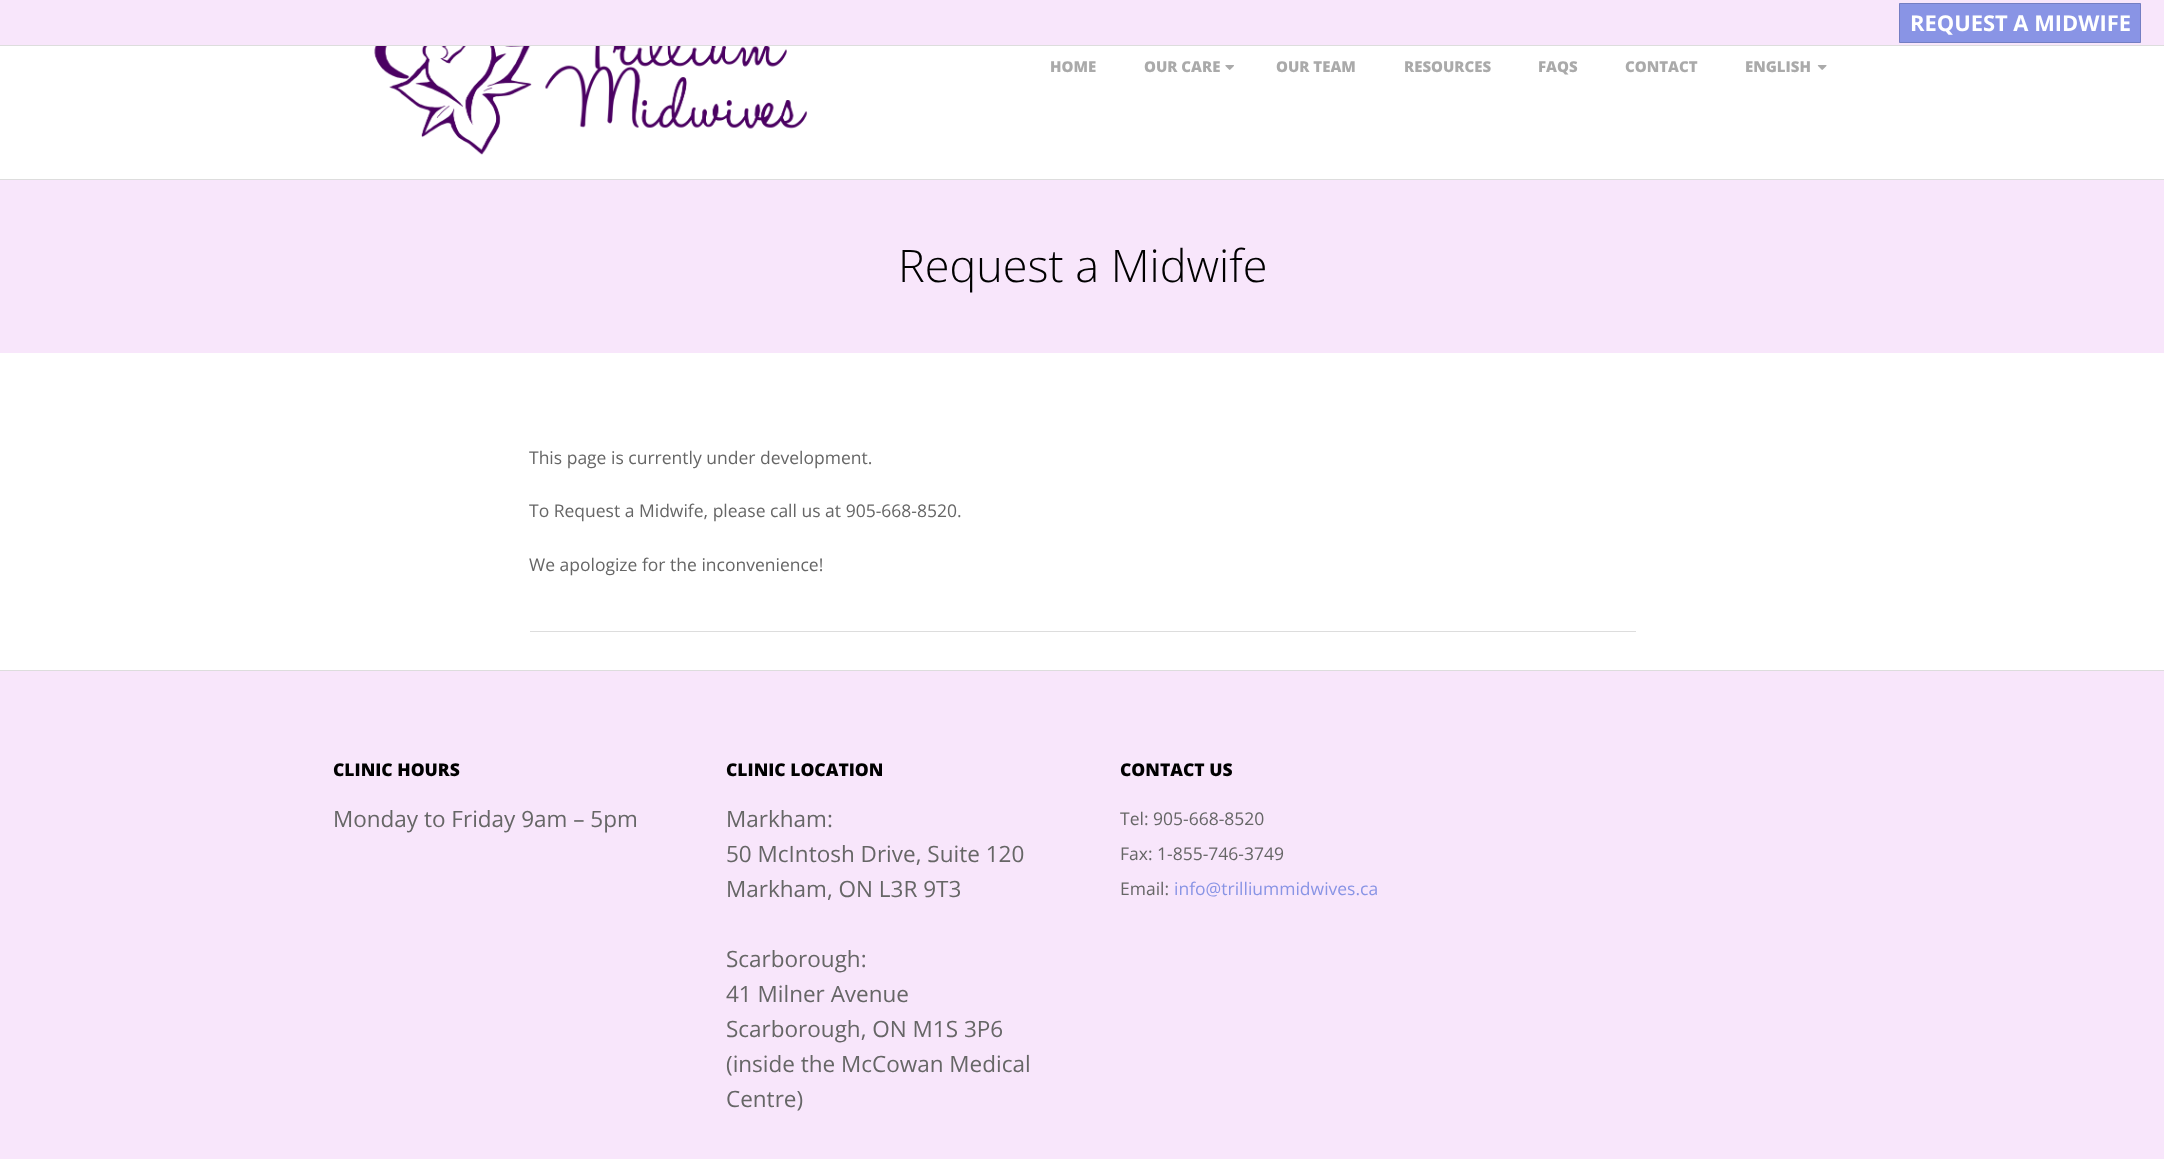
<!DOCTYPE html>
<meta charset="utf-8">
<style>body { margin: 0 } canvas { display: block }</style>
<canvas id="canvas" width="2164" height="1159"></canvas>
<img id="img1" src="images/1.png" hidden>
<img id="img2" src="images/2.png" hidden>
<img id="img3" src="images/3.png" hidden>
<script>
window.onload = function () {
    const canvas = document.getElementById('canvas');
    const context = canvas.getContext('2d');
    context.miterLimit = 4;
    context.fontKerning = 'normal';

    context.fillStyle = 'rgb(255, 255, 255)';
    context.fillRect(0, 0, 2164, 1159);
    context.fillStyle = 'rgb(248, 230, 251)';
    context.fillRect(0, 0, 2164, 45);
    context.fillStyle = 'rgb(221, 221, 221)';
    context.fillRect(0, 45, 2164, 1);
    context.fillStyle = 'rgb(137, 148, 229)';
    context.beginPath();
    context.roundRect(1899, 3, 242, 40, 1);
    context.fill();
    context.strokeStyle = 'rgba(0, 0, 0, 0.15)';
    context.strokeRect(1899.5, 3.5, 241, 39);
    context.fillStyle = 'rgb(221, 221, 221)';
    context.fillRect(0, 179, 2164, 1);
    context.drawImage(document.getElementById('img1'), 374, 46, 434, 109);
    context.drawImage(document.getElementById('img2'), 1225, 65, 9, 5);
    context.drawImage(document.getElementById('img3'), 1817, 65, 10, 5);
    context.fillStyle = 'rgb(248, 230, 251)';
    context.fillRect(0, 180, 2164, 173);
    context.fillStyle = 'rgb(221, 221, 221)';
    context.fillRect(530, 631, 1106, 1);
    context.fillStyle = 'rgb(248, 230, 251)';
    context.fillRect(0, 671, 2164, 488);
    context.fillStyle = 'rgb(221, 221, 221)';
    context.fillRect(0, 670, 2164, 1);
    context.font = 'bold 21.9px Open Sans';
    context.fillStyle = 'rgb(255, 255, 255)';
    context.fillText('REQUEST A MIDWIFE', 1910, 31);
    context.font = '800 15px Open Sans';
    context.fillStyle = 'rgb(170, 170, 170)';
    context.fillText('HOME', 1050, 72);
    context.fillText('OUR CARE', 1144, 72);
    context.fillText('OUR TEAM', 1276, 72);
    context.fillText('RESOURCES', 1404, 72);
    context.fillText('FAQS', 1538, 72);
    context.fillText('CONTACT', 1625, 72);
    context.fillText('ENGLISH', 1745, 72);
    context.font = '300 45px Open Sans';
    context.fillStyle = 'rgb(0, 0, 0)';
    context.fillText('Request a Midwife', 898, 282);
    context.font = '17.5px Open Sans';
    context.fillStyle = 'rgb(102, 102, 102)';
    context.fillText('This page is currently under development.', 529, 464);
    context.fillText('To Request a Midwife, please call us at 905-668-8520.', 529, 517);
    context.fillText('We apologize for the inconvenience!', 529, 571);
    context.font = '800 17.5px Open Sans';
    context.fillStyle = 'rgb(0, 0, 0)';
    context.fillText('CLINIC HOURS', 333, 776);
    context.font = '22.5px Open Sans';
    context.fillStyle = 'rgb(102, 102, 102)';
    context.fillText('Monday to Friday 9am – 5pm', 333, 827);
    context.font = '800 17.5px Open Sans';
    context.fillStyle = 'rgb(0, 0, 0)';
    context.fillText('CLINIC LOCATION', 726, 776);
    context.font = '22.5px Open Sans';
    context.fillStyle = 'rgb(102, 102, 102)';
    context.fillText('Markham:', 726, 827);
    context.fillText('50 McIntosh Drive, Suite 120', 726, 862);
    context.fillText('Markham, ON L3R 9T3', 726, 897);
    context.fillText('Scarborough:', 726, 967);
    context.fillText('41 Milner Avenue', 726, 1002);
    context.fillText('Scarborough, ON M1S 3P6', 726, 1037);
    context.fillText('(inside the McCowan Medical', 726, 1072);
    context.fillText('Centre)', 726, 1107);
    context.font = '800 17.5px Open Sans';
    context.fillStyle = 'rgb(0, 0, 0)';
    context.fillText('CONTACT US', 1120, 776);
    context.font = '17.5px Open Sans';
    context.fillStyle = 'rgb(102, 102, 102)';
    context.fillText('Tel: 905-668-8520', 1120, 825);
    context.fillText('Fax: 1-855-746-3749', 1120, 860);
    context.fillText('Email:', 1120, 895);
    context.fillStyle = 'rgb(137, 148, 229)';
    context.fillText('info@trilliummidwives.ca', 1174, 895);
};
</script>
